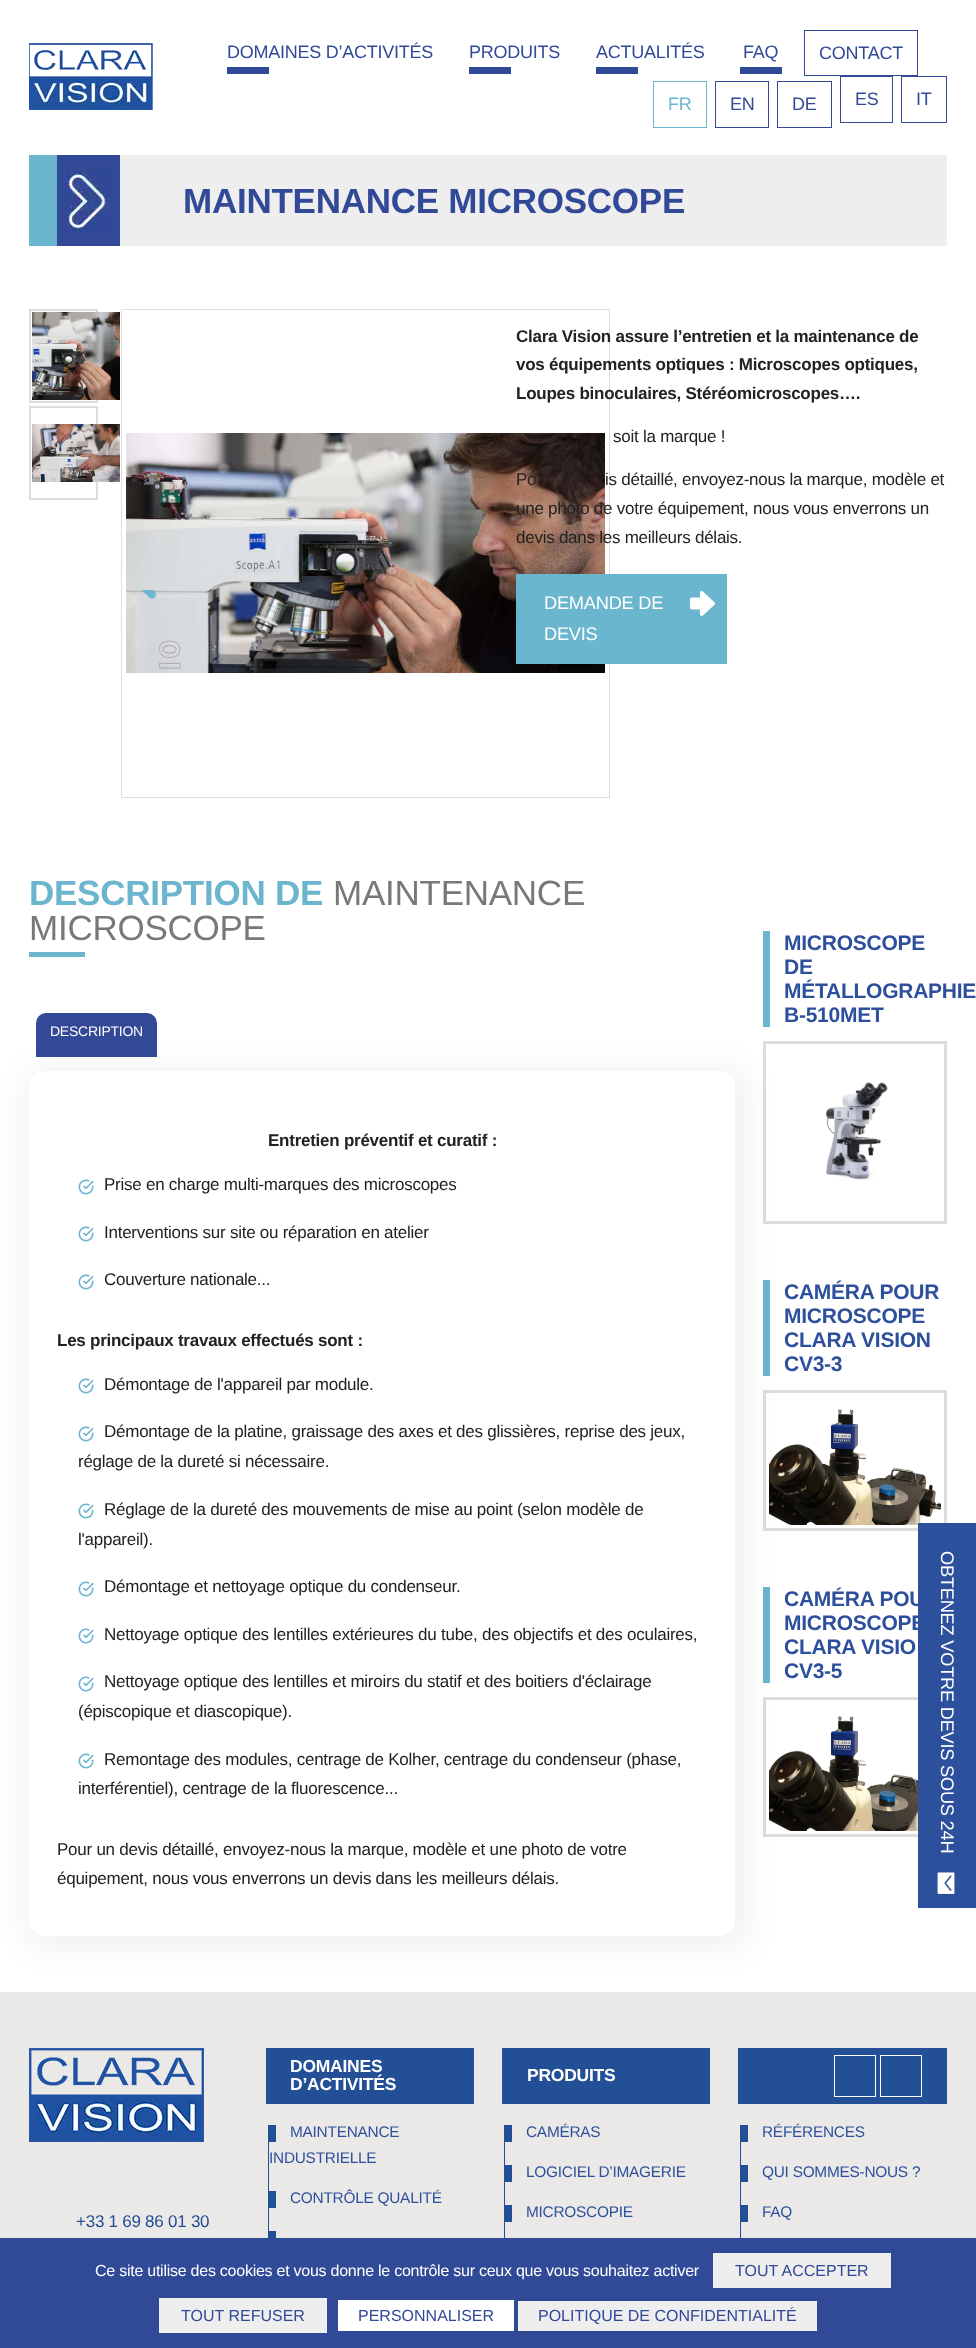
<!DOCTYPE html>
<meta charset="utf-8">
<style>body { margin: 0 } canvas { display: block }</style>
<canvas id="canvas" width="976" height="2348"></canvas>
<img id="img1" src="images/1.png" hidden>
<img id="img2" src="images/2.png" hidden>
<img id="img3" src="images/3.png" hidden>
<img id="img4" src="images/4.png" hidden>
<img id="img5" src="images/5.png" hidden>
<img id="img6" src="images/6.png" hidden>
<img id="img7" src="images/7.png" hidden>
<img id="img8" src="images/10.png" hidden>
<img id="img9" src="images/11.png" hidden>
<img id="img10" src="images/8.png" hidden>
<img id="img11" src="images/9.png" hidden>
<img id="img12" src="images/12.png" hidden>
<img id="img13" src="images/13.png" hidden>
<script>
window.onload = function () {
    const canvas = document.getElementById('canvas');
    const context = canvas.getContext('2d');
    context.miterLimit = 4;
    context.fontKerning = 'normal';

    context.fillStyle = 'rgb(255, 255, 255)';
    context.fillRect(0, 0, 976, 2348);
    context.drawImage(document.getElementById('img1'), 29, 43, 124, 67);
    context.fillStyle = 'rgb(48, 74, 151)';
    context.fillRect(227, 67, 42, 7);
    context.fillRect(469, 67, 42, 7);
    context.fillRect(596, 67, 42, 7);
    context.fillRect(740, 67, 42, 7);
    context.strokeStyle = 'rgb(50, 73, 151)';
    context.strokeRect(804.5, 30.5, 113, 45);
    context.strokeStyle = 'rgb(107, 181, 206)';
    context.strokeRect(653.5, 81.5, 53, 46);
    context.strokeStyle = 'rgb(50, 73, 151)';
    context.strokeRect(715.5, 81.5, 53, 46);
    context.strokeRect(777.5, 81.5, 54, 46);
    context.strokeRect(840.5, 76.5, 52, 46);
    context.strokeRect(901.5, 76.5, 45, 46);
    context.fillStyle = 'rgb(238, 238, 238)';
    context.fillRect(120, 155, 827, 91);
    context.fillStyle = 'rgb(50, 73, 151)';
    context.fillRect(57, 155, 63, 91);
    context.drawImage(document.getElementById('img2'), 63, 167, 49, 65);
    context.fillStyle = 'rgb(107, 181, 206)';
    context.fillRect(29, 155, 28, 91);
    context.strokeStyle = 'rgb(221, 221, 221)';
    context.lineWidth = 2;
    context.strokeRect(30, 310, 67, 92);
    context.drawImage(document.getElementById('img3'), 32, 312, 88, 88);
    context.strokeRect(30, 407, 67, 92);
    context.drawImage(document.getElementById('img4'), 32, 424, 88, 58);
    context.lineWidth = 1;
    context.strokeRect(121.5, 309.5, 488, 488);
    context.drawImage(document.getElementById('img5'), 126, 433, 479, 240);
    context.drawImage(document.getElementById('img6'), 141, 590, 16, 9);
    context.fillStyle = 'rgb(107, 182, 207)';
    context.fillRect(516, 574, 211, 90);
    context.drawImage(document.getElementById('img7'), 690, 591, 25, 25);
    context.fillStyle = 'rgb(107, 181, 206)';
    context.fillRect(29, 952, 56, 5);
    context.fillRect(763, 931, 7, 96);
    context.lineWidth = 3;
    context.strokeRect(764.5, 1042.5, 181, 180);
    context.fillRect(763, 1280, 7, 96);
    context.strokeRect(764.5, 1391.5, 181, 138);
    context.drawImage(document.getElementById('img8'), 769, 1409, 172, 116);
    context.fillRect(763, 1587, 7, 96);
    context.strokeRect(764.5, 1698.5, 181, 137);
    context.drawImage(document.getElementById('img9'), 769, 1716, 149, 115);
    context.fillStyle = 'rgb(234, 233, 231)';
    context.fillRect(0, 1992, 976, 246);
    context.fillStyle = 'rgba(0, 0, 0, 0.05)';
    context.filter = 'blur(15px)';
    context.beginPath();
    context.roundRect(24, 1066, 726, 885, 25);
    context.fill();
    context.filter = 'none';
    context.fillStyle = 'rgb(50, 73, 151)';
    context.beginPath();
    context.roundRect(36, 1013, 121, 44, [10, 10, 0, 0]);
    context.fill();
    context.fillStyle = 'rgb(255, 255, 255)';
    context.beginPath();
    context.roundRect(29, 1071, 706, 865, 15);
    context.fill();
    context.drawImage(document.getElementById('img10'), 78, 1179, 16, 16);
    context.drawImage(document.getElementById('img10'), 78, 1226, 16, 16);
    context.drawImage(document.getElementById('img10'), 78, 1274, 16, 16);
    context.drawImage(document.getElementById('img10'), 78, 1378, 16, 16);
    context.drawImage(document.getElementById('img10'), 78, 1426, 16, 16);
    context.drawImage(document.getElementById('img10'), 78, 1503, 16, 16);
    context.drawImage(document.getElementById('img10'), 78, 1581, 16, 16);
    context.drawImage(document.getElementById('img10'), 78, 1628, 16, 16);
    context.drawImage(document.getElementById('img10'), 78, 1676, 16, 16);
    context.drawImage(document.getElementById('img10'), 78, 1753, 16, 16);
    context.drawImage(document.getElementById('img11'), 825, 1082, 63, 98);
    context.fillStyle = 'rgb(45, 80, 157)';
    context.fillRect(918, 1523, 58, 385);
    context.drawImage(document.getElementById('img12'), 937, 1872, 18, 22);
    context.fillStyle = 'rgb(35, 79, 150)';
    context.fillRect(266, 2048, 208, 56);
    context.fillRect(268, 2125, 1, 113);
    context.fillRect(269, 2125, 7, 17);
    context.fillRect(269, 2191, 7, 17);
    context.fillRect(269, 2231, 7, 7);
    context.fillRect(502, 2048, 208, 56);
    context.fillRect(504, 2125, 1, 113);
    context.fillRect(505, 2125, 7, 17);
    context.fillRect(505, 2165, 7, 17);
    context.fillRect(505, 2205, 7, 17);
    context.fillRect(738, 2048, 209, 56);
    context.strokeStyle = 'rgb(255, 255, 255)';
    context.lineWidth = 1;
    context.strokeRect(834.5, 2055.5, 41, 41);
    context.strokeRect(880.5, 2055.5, 41, 41);
    context.fillRect(740, 2125, 1, 113);
    context.fillRect(741, 2125, 7, 17);
    context.fillRect(741, 2165, 7, 17);
    context.fillRect(741, 2205, 7, 17);
    context.drawImage(document.getElementById('img13'), 29, 2048, 175, 94);
    context.fillStyle = 'rgb(49, 74, 151)';
    context.fillRect(0, 2238, 976, 110);
    context.fillStyle = 'rgb(238, 238, 238)';
    context.fillRect(713, 2253, 178, 35);
    context.fillRect(159, 2298, 168, 35);
    context.fillStyle = 'rgb(255, 255, 255)';
    context.fillRect(338, 2300, 176, 31);
    context.fillStyle = 'rgb(238, 238, 238)';
    context.fillRect(518, 2301, 299, 30);
    context.letterSpacing = '-0.25px';
    context.font = '18px Liberation Sans';
    context.fillStyle = 'rgb(50, 73, 151)';
    context.fillText('DOMAINES D’ACTIVITÉS', 227, 58);
    context.fillText('PRODUITS', 469, 58);
    context.fillText('ACTUALITÉS', 596, 58);
    context.fillText('FAQ', 743, 58);
    context.fillText('CONTACT', 819, 59);
    context.fillStyle = 'rgb(107, 181, 206)';
    context.fillText('FR', 668, 110);
    context.fillStyle = 'rgb(50, 73, 151)';
    context.fillText('EN', 730, 110);
    context.fillText('DE', 792, 110);
    context.fillText('ES', 855, 105);
    context.fillText('IT', 916, 105);
    context.font = 'bold 35px Liberation Sans';
    context.fillText('MAINTENANCE MICROSCOPE', 183, 213);
    context.font = 'bold 17px Liberation Sans';
    context.fillStyle = 'rgb(34, 34, 34)';
    context.fillText('Clara Vision assure l’entretien et la maintenance de', 516, 342);
    context.fillText('vos équipements optiques : Microscopes optiques,', 516, 370);
    context.fillText('Loupes binoculaires, Stéréomicroscopes….', 516, 399);
    context.font = '17px Liberation Sans';
    context.fillText('soit la marque !', 613, 442);
    context.fillText('Po', 516, 485);
    context.fillText('is détaillé, envoyez-nous la marque, modèle et', 605, 485);
    context.fillText('une photo de votre équipement, nous vous enverrons un', 516, 514);
    context.fillText('devis dans les meilleurs délais.', 516, 543);
    context.font = '18.25px Liberation Sans';
    context.fillStyle = 'rgb(255, 255, 255)';
    context.fillText('DEMANDE DE', 544, 609);
    context.fillText('DEVIS', 544, 640);
    context.font = 'bold 35px Liberation Sans';
    context.fillStyle = 'rgb(107, 181, 206)';
    context.fillText('DESCRIPTION DE', 29, 905);
    context.font = '35px Liberation Sans';
    context.fillStyle = 'rgb(120, 120, 120)';
    context.fillText('MAINTENANCE', 333, 905);
    context.fillText('MICROSCOPE', 29, 940);
    context.font = '14px Liberation Sans';
    context.fillStyle = 'rgb(255, 255, 255)';
    context.fillText('DESCRIPTION', 50, 1036);
    context.font = 'bold 17px Liberation Sans';
    context.fillStyle = 'rgb(34, 34, 34)';
    context.fillText('Entretien préventif et curatif :', 268, 1146);
    context.font = '17px Liberation Sans';
    context.fillText('Prise en charge multi-marques des microscopes', 104, 1190);
    context.fillText('Interventions sur site ou réparation en atelier', 104, 1238);
    context.fillText('Couverture nationale...', 104, 1285);
    context.font = 'bold 17px Liberation Sans';
    context.fillText('Les principaux travaux effectués sont :', 57, 1346);
    context.font = '17px Liberation Sans';
    context.fillText('Démontage de l\'appareil par module.', 104, 1390);
    context.fillText('Démontage de la platine, graissage des axes et des glissières, reprise des jeux,', 104, 1437);
    context.fillText('réglage de la dureté si nécessaire.', 78, 1467);
    context.fillText('Réglage de la dureté des mouvements de mise au point (selon modèle de', 104, 1515);
    context.fillText('l\'appareil).', 78, 1545);
    context.fillText('Démontage et nettoyage optique du condenseur.', 104, 1592);
    context.fillText('Nettoyage optique des lentilles extérieures du tube, des objectifs et des oculaires,', 104, 1640);
    context.fillText('Nettoyage optique des lentilles et miroirs du statif et des boitiers d\'éclairage', 104, 1687);
    context.fillText('(épiscopique et diascopique).', 78, 1717);
    context.fillText('Remontage des modules, centrage de Kolher, centrage du condenseur (phase,', 104, 1765);
    context.fillText('interférentiel), centrage de la fluorescence...', 78, 1794);
    context.fillText('Pour un devis détaillé, envoyez-nous la marque, modèle et une photo de votre', 57, 1855);
    context.fillText('équipement, nous vous enverrons un devis dans les meilleurs délais.', 57, 1884);
    context.font = 'bold 21px Liberation Sans';
    context.fillStyle = 'rgb(45, 80, 157)';
    context.fillText('MICROSCOPE', 784, 950);
    context.fillText('DE', 784, 974);
    context.fillText('MÉTALLOGRAPHIE', 784, 998);
    context.fillText('B-510MET', 784, 1022);
    context.fillText('CAMÉRA POUR', 784, 1299);
    context.fillText('MICROSCOPE', 784, 1323);
    context.fillText('CLARA VISION', 784, 1347);
    context.fillText('CV3-3', 784, 1371);
    context.fillText('CAMÉRA POU', 784, 1606);
    context.fillText('MICROSCOPE', 784, 1630);
    context.fillText('CLARA VISIO', 784, 1654);
    context.fillText('CV3-5', 784, 1678);
    context.font = '18.25px Liberation Sans';
    context.fillStyle = 'rgb(255, 255, 255)';
    context.save();
    context.translate(941, 1551);
    context.rotate(90 * Math.PI / 180);
    context.fillText('OBTENEZ VOTRE DEVIS SOUS 24H', 0, 0);
    context.restore();
    context.font = 'bold 17.5px Liberation Sans';
    context.fillText('DOMAINES', 290, 2072);
    context.fillText('D’ACTIVITÉS', 290, 2090);
    context.font = '15.4px Liberation Sans';
    context.fillStyle = 'rgb(45, 80, 157)';
    context.fillText('MAINTENANCE', 290, 2137);
    context.fillText('INDUSTRIELLE', 269, 2163);
    context.fillText('CONTRÔLE QUALITÉ', 290, 2203);
    context.font = 'bold 17.5px Liberation Sans';
    context.fillStyle = 'rgb(255, 255, 255)';
    context.fillText('PRODUITS', 527, 2081);
    context.font = '15.4px Liberation Sans';
    context.fillStyle = 'rgb(45, 80, 157)';
    context.fillText('CAMÉRAS', 526, 2137);
    context.fillText('LOGICIEL D’IMAGERIE', 526, 2177);
    context.fillText('MICROSCOPIE', 526, 2217);
    context.fillText('RÉFÉRENCES', 762, 2137);
    context.fillText('QUI SOMMES-NOUS ?', 762, 2177);
    context.fillText('FAQ', 762, 2217);
    context.font = '17px Liberation Sans';
    context.fillStyle = 'rgb(35, 77, 149)';
    context.fillText('+33 1 69 86 01 30', 76, 2227);
    context.font = '16px Liberation Sans';
    context.fillStyle = 'rgb(255, 255, 255)';
    context.fillText('Ce site utilise des cookies et vous donne le contrôle sur ceux que vous souhaitez activer', 95, 2276);
    context.letterSpacing = '0px';
    context.fillStyle = 'rgb(50, 73, 151)';
    context.fillText('TOUT ACCEPTER', 735, 2276);
    context.fillText('TOUT REFUSER', 181, 2321);
    context.fillText('PERSONNALISER', 358, 2321);
    context.fillText('POLITIQUE DE CONFIDENTIALITÉ', 538, 2321);
};
</script>
